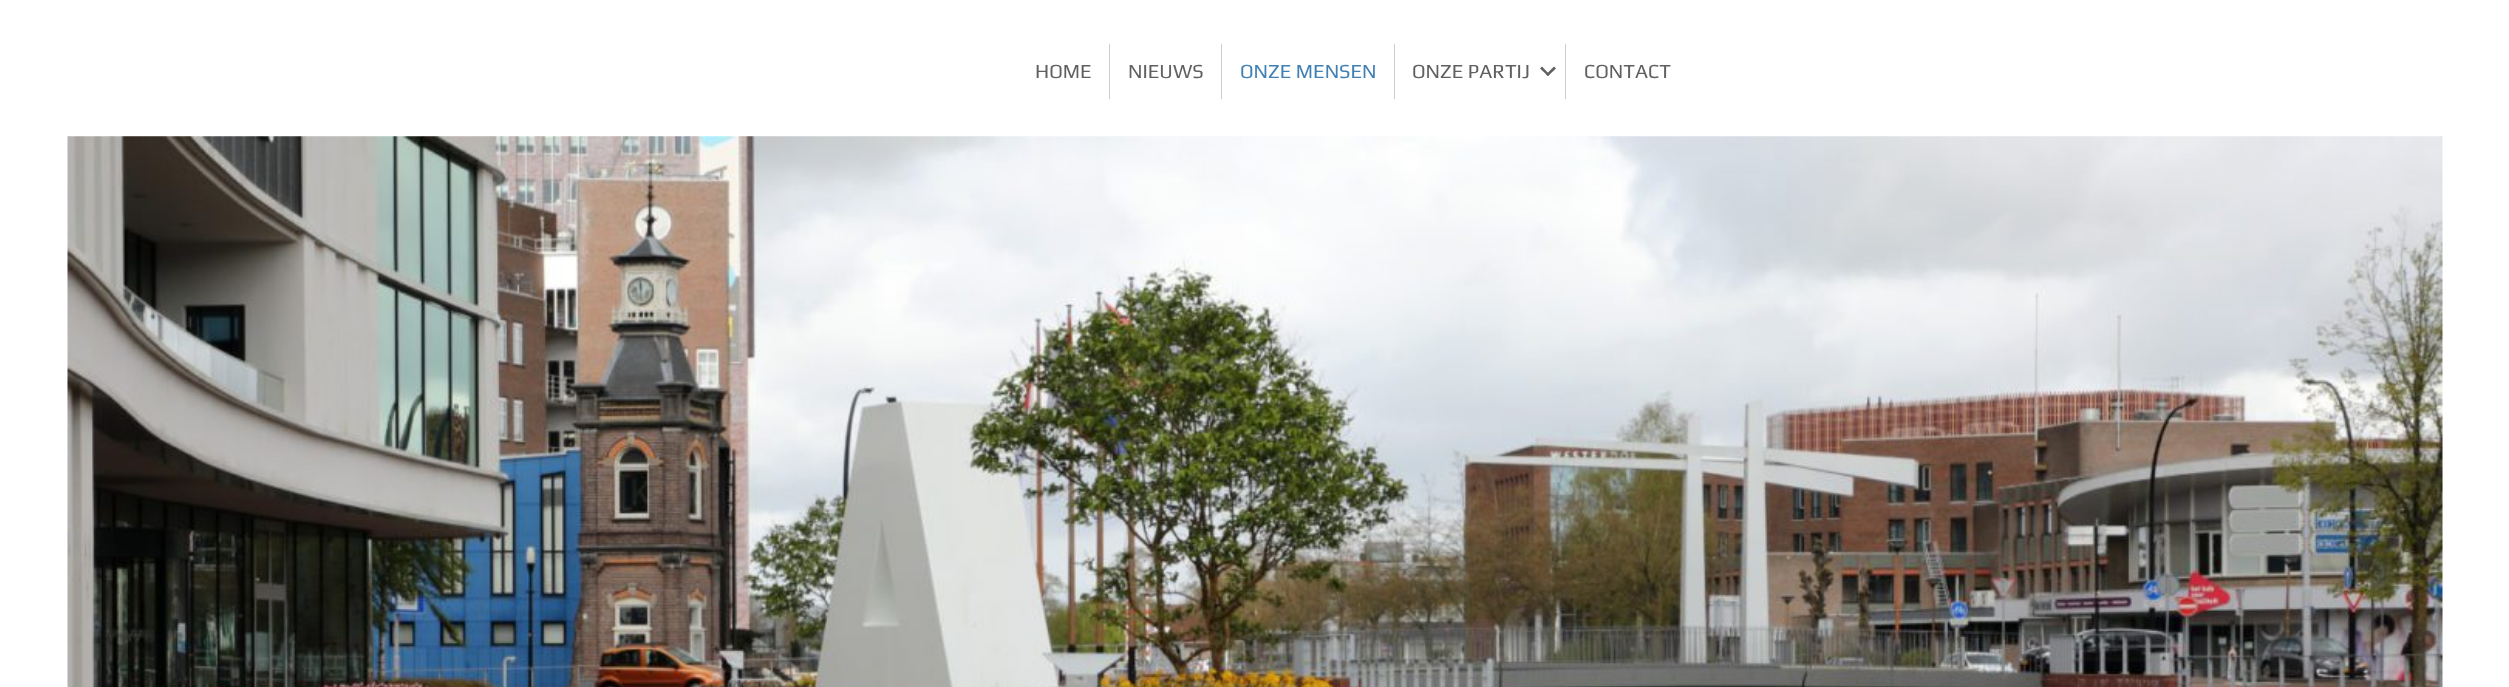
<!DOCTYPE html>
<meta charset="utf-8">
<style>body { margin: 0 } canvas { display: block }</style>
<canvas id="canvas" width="2509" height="687"></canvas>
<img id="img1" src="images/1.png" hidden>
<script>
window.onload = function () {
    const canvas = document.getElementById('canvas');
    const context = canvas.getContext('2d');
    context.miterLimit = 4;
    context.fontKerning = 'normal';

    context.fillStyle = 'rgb(255, 255, 255)';
    context.fillRect(0, 0, 2509, 687);
    context.fillStyle = 'rgb(204, 204, 204)';
    context.fillRect(1109, 44, 1, 55);
    context.fillRect(1221, 44, 1, 55);
    context.fillRect(1394, 44, 1, 55);
    context.fillStyle = 'rgb(96, 96, 96)';
    context.beginPath();
    context.moveTo(1554, 66.5);
    context.lineTo(1556, 68.5);
    context.lineTo(1548, 76);
    context.lineTo(1546, 74.5);
    context.closePath();
    context.fill();
    context.beginPath();
    context.moveTo(1542, 66.5);
    context.lineTo(1549.5, 74.5);
    context.lineTo(1548, 76);
    context.lineTo(1540, 68.5);
    context.closePath();
    context.fill();
    context.fillStyle = 'rgb(204, 204, 204)';
    context.fillRect(1565, 44, 1, 55);
    context.drawImage(document.getElementById('img1'), 67, 136, 2376, 551);
    context.font = '20px Play';
    context.fillStyle = 'rgb(96, 96, 96)';
    context.fillText('HOME', 1035, 78);
    context.fillText('NIEUWS', 1128, 78);
    context.fillStyle = 'rgb(65, 128, 179)';
    context.fillText('ONZE MENSEN', 1240, 78);
    context.fillStyle = 'rgb(96, 96, 96)';
    context.fillText('ONZE PARTIJ', 1412, 78);
    context.fillText('CONTACT', 1584, 78);
};
</script>
